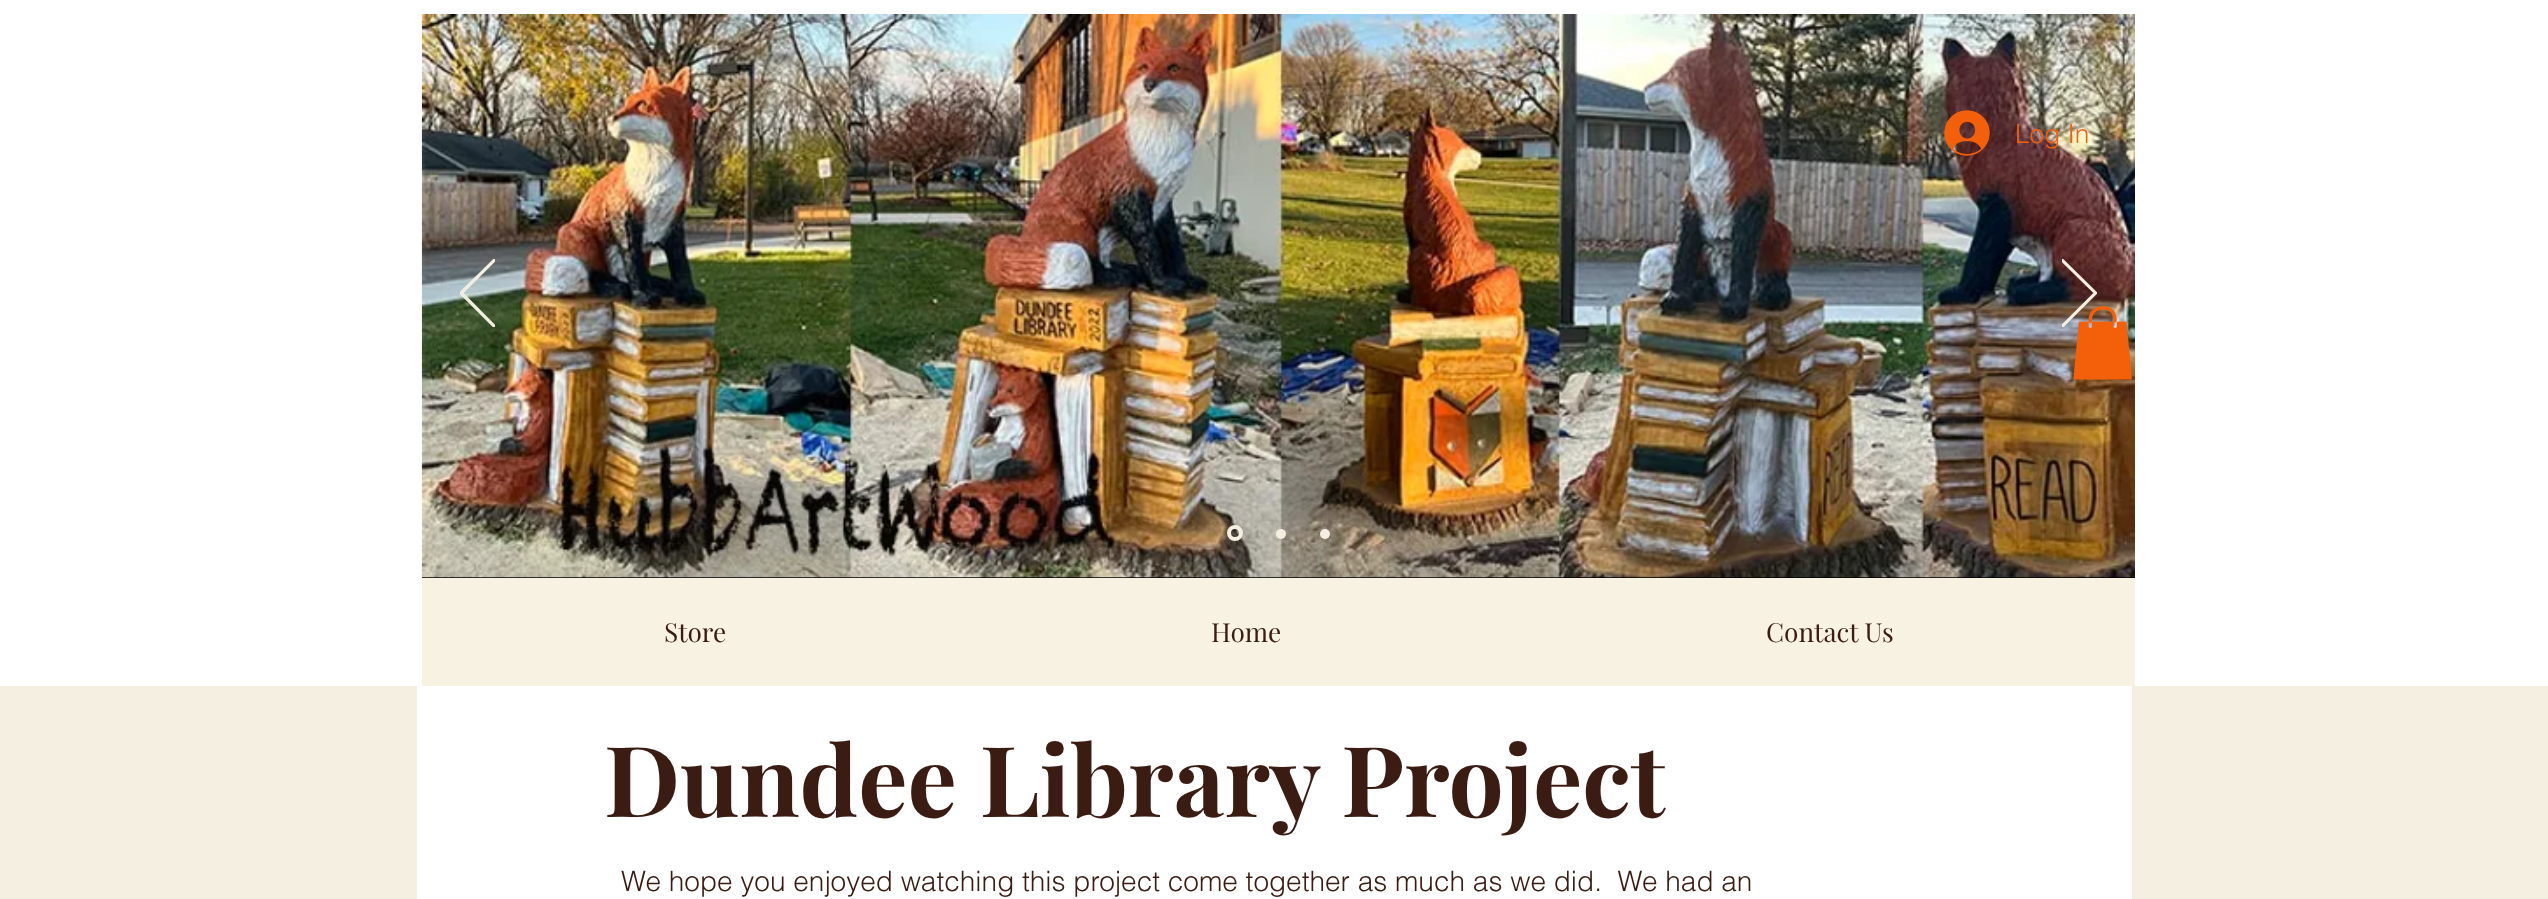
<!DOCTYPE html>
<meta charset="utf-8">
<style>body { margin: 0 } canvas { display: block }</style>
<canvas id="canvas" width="2548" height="899"></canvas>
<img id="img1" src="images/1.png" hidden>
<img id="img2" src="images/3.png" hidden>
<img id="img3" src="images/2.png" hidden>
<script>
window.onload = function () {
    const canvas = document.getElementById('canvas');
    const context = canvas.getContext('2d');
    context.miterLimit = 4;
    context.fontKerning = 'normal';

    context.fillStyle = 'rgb(255, 255, 255)';
    context.fillRect(0, 0, 2548, 899);
    context.fillStyle = 'rgb(0, 0, 0)';
    context.fillRect(422, 577, 1713, 1);
    context.drawImage(document.getElementById('img1'), 421, 14, 1714, 564);
    context.save();
    context.beginPath();
    context.rect(460, 259, 35, 68);
    context.clip();
    context.beginPath();
    context.moveTo(494, 327);
    context.lineTo(460, 293);
    context.lineTo(494, 259.5);
    context.lineTo(495, 260.5);
    context.lineTo(462.5, 293);
    context.lineTo(495, 326);
    context.closePath();
    context.strokeStyle = 'rgb(244, 239, 225)';
    context.lineWidth = 1.7;
    context.stroke();
    context.restore();
    context.drawImage(document.getElementById('img2'), 2073, 306, 59, 74);
    context.save();
    context.beginPath();
    context.rect(2062, 259, 35, 68);
    context.clip();
    context.beginPath();
    context.moveTo(2062.5, 327);
    context.lineTo(2096.5, 293);
    context.lineTo(2062.5, 259.5);
    context.lineTo(2061.5, 260.5);
    context.lineTo(2094.5, 293);
    context.lineTo(2061.5, 326);
    context.closePath();
    context.strokeStyle = 'rgb(244, 239, 225)';
    context.lineWidth = 1.7;
    context.stroke();
    context.restore();
    context.beginPath();
    context.arc(1235, 533, 6, 0, 2 * Math.PI);
    context.strokeStyle = 'rgb(244, 239, 225)';
    context.lineWidth = 4;
    context.stroke();
    context.fillStyle = 'rgb(244, 239, 225)';
    context.beginPath();
    context.arc(1281, 534, 5, 0, 2 * Math.PI);
    context.fill();
    context.beginPath();
    context.arc(1325, 534, 5, 0, 2 * Math.PI);
    context.fill();
    context.drawImage(document.getElementById('img3'), 1944, 110, 46, 46);
    context.fillStyle = 'rgb(247, 242, 226)';
    context.fillRect(422, 578, 1713, 108);
    context.fillStyle = 'rgb(244, 239, 225)';
    context.fillRect(0, 686, 2548, 213);
    context.fillStyle = 'rgb(255, 255, 255)';
    context.fillRect(417, 686, 1715, 213);
    context.font = '300 26.25px helvetica';
    context.fillStyle = 'rgb(244, 95, 9)';
    context.fillText('Log In', 2015, 143);
    context.font = '26.25px Playfair Display';
    context.fillStyle = 'rgb(58, 28, 19)';
    context.fillText('Store', 664, 642);
    context.fillText('Home', 1211, 642);
    context.fillText('Contact Us', 1766, 642);
    context.font = 'bold 98px Playfair Display';
    context.fillText('Dundee Library Project', 604, 817);
    context.font = '300 28px helvetica';
    context.fillText('We hope you enjoyed watching this project come together as much as we did.  We had an', 621, 891);
};
</script>
